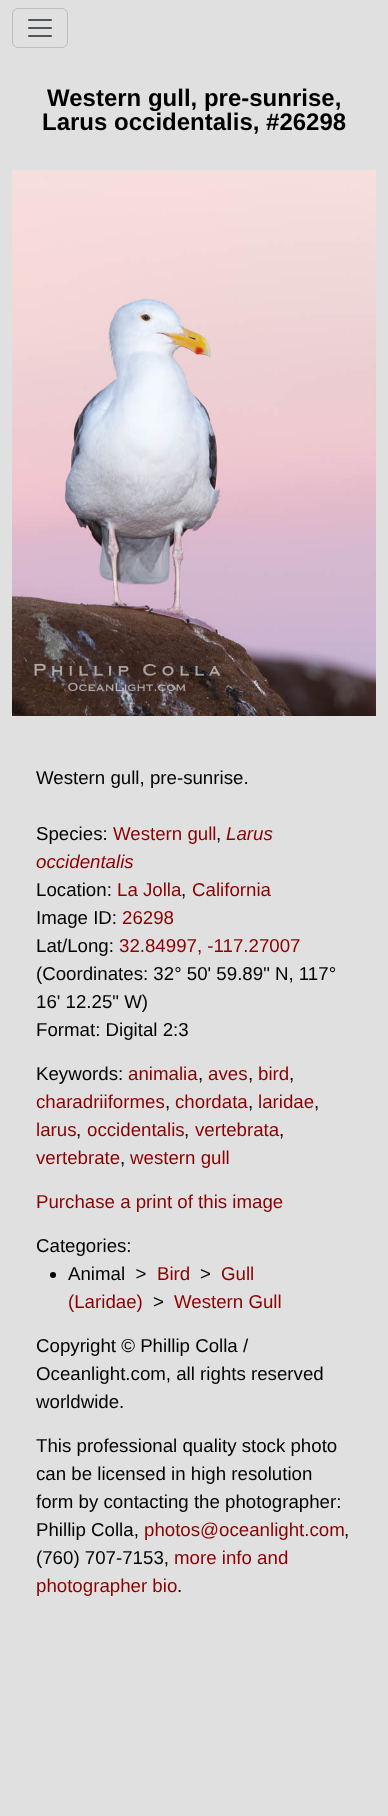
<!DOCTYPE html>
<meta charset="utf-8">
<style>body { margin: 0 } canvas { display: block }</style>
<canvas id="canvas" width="388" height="1816"></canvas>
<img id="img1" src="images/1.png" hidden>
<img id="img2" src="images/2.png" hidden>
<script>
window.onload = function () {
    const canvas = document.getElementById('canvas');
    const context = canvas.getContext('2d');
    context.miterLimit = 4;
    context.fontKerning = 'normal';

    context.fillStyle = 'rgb(224, 224, 224)';
    context.fillRect(0, 0, 388, 1816);
    context.beginPath();
    context.roundRect(12.5, 8.5, 55, 39, 5.5);
    context.strokeStyle = 'rgb(190, 190, 190)';
    context.stroke();
    context.drawImage(document.getElementById('img1'), 28, 19, 24, 18);
    context.drawImage(document.getElementById('img2'), 12, 170, 364, 546);
    context.fillStyle = 'rgb(0, 0, 0)';
    context.beginPath();
    context.arc(53, 1275, 3, 0, 2 * Math.PI);
    context.fill();
    context.font = 'bold 24px Liberation Sans';
    context.fillText('Western gull, pre-sunrise,', 47, 106);
    context.fillText('Larus occidentalis, #26298', 42, 130);
    context.font = '18.7px Liberation Sans';
    context.fillText('Western gull, pre-sunrise.', 36, 784);
    context.fillText('Species:', 36, 840);
    context.fillStyle = 'rgb(139, 0, 0)';
    context.fillText('Western gull', 113, 840);
    context.fillStyle = 'rgb(0, 0, 0)';
    context.fillText(',', 216, 840);
    context.font = 'italic 18.7px Liberation Sans';
    context.fillStyle = 'rgb(139, 0, 0)';
    context.fillText('Larus', 226, 840);
    context.fillText('occidentalis', 36, 868);
    context.font = '18.7px Liberation Sans';
    context.fillStyle = 'rgb(0, 0, 0)';
    context.fillText('Location:', 36, 896);
    context.fillStyle = 'rgb(139, 0, 0)';
    context.fillText('La Jolla', 117, 896);
    context.fillStyle = 'rgb(0, 0, 0)';
    context.fillText(',', 181, 896);
    context.fillStyle = 'rgb(139, 0, 0)';
    context.fillText('California', 192, 896);
    context.fillStyle = 'rgb(0, 0, 0)';
    context.fillText('Image ID:', 36, 924);
    context.fillStyle = 'rgb(139, 0, 0)';
    context.fillText('26298', 122, 924);
    context.fillStyle = 'rgb(0, 0, 0)';
    context.fillText('Lat/Long:', 36, 952);
    context.fillStyle = 'rgb(139, 0, 0)';
    context.fillText('32.84997, -117.27007', 119, 952);
    context.fillStyle = 'rgb(0, 0, 0)';
    context.fillText('(Coordinates: 32° 50\' 59.89" N, 117°', 36, 980);
    context.fillText('16\' 12.25" W)', 36, 1008);
    context.fillText('Format: Digital 2:3', 36, 1036);
    context.fillText('Keywords:', 36, 1080);
    context.fillStyle = 'rgb(139, 0, 0)';
    context.fillText('animalia', 128, 1080);
    context.fillStyle = 'rgb(0, 0, 0)';
    context.fillText(',', 198, 1080);
    context.fillStyle = 'rgb(139, 0, 0)';
    context.fillText('aves', 208, 1080);
    context.fillStyle = 'rgb(0, 0, 0)';
    context.fillText(',', 248, 1080);
    context.fillStyle = 'rgb(139, 0, 0)';
    context.fillText('bird', 258, 1080);
    context.fillStyle = 'rgb(0, 0, 0)';
    context.fillText(',', 289, 1080);
    context.fillStyle = 'rgb(139, 0, 0)';
    context.fillText('charadriiformes', 36, 1108);
    context.fillStyle = 'rgb(0, 0, 0)';
    context.fillText(',', 165, 1108);
    context.fillStyle = 'rgb(139, 0, 0)';
    context.fillText('chordata', 175, 1108);
    context.fillStyle = 'rgb(0, 0, 0)';
    context.fillText(',', 248, 1108);
    context.fillStyle = 'rgb(139, 0, 0)';
    context.fillText('laridae', 258, 1108);
    context.fillStyle = 'rgb(0, 0, 0)';
    context.fillText(',', 314, 1108);
    context.fillStyle = 'rgb(139, 0, 0)';
    context.fillText('larus', 36, 1136);
    context.fillStyle = 'rgb(0, 0, 0)';
    context.fillText(',', 76, 1136);
    context.fillStyle = 'rgb(139, 0, 0)';
    context.fillText('occidentalis', 87, 1136);
    context.fillStyle = 'rgb(0, 0, 0)';
    context.fillText(',', 184, 1136);
    context.fillStyle = 'rgb(139, 0, 0)';
    context.fillText('vertebrata', 195, 1136);
    context.fillStyle = 'rgb(0, 0, 0)';
    context.fillText(',', 279, 1136);
    context.fillStyle = 'rgb(139, 0, 0)';
    context.fillText('vertebrate', 36, 1164);
    context.fillStyle = 'rgb(0, 0, 0)';
    context.fillText(',', 120, 1164);
    context.fillStyle = 'rgb(139, 0, 0)';
    context.fillText('western gull', 130, 1164);
    context.fillText('Purchase a print of this image', 36, 1208);
    context.fillStyle = 'rgb(0, 0, 0)';
    context.fillText('Categories:', 36, 1252);
    context.fillText('Animal  >', 68, 1280);
    context.fillStyle = 'rgb(139, 0, 0)';
    context.fillText('Bird', 157, 1280);
    context.fillStyle = 'rgb(0, 0, 0)';
    context.fillText('>', 200, 1280);
    context.fillStyle = 'rgb(139, 0, 0)';
    context.fillText('Gull', 221, 1280);
    context.fillText('(Laridae)', 68, 1308);
    context.fillStyle = 'rgb(0, 0, 0)';
    context.fillText('>', 153, 1308);
    context.fillStyle = 'rgb(139, 0, 0)';
    context.fillText('Western Gull', 174, 1308);
    context.fillStyle = 'rgb(0, 0, 0)';
    context.fillText('Copyright © Phillip Colla /', 36, 1352);
    context.fillText('Oceanlight.com, all rights reserved', 36, 1380);
    context.fillText('worldwide.', 36, 1408);
    context.fillText('This professional quality stock photo', 36, 1452);
    context.fillText('can be licensed in high resolution', 36, 1480);
    context.fillText('form by contacting the photographer:', 36, 1508);
    context.fillText('Phillip Colla,', 36, 1536);
    context.fillStyle = 'rgb(139, 0, 0)';
    context.fillText('photos@oceanlight.com', 144, 1536);
    context.fillStyle = 'rgb(0, 0, 0)';
    context.fillText(',', 344, 1536);
    context.fillText('(760) 707-7153,', 36, 1564);
    context.fillStyle = 'rgb(139, 0, 0)';
    context.fillText('more info and', 174, 1564);
    context.fillText('photographer bio', 36, 1592);
    context.fillStyle = 'rgb(0, 0, 0)';
    context.fillText('.', 177, 1592);
};
</script>
